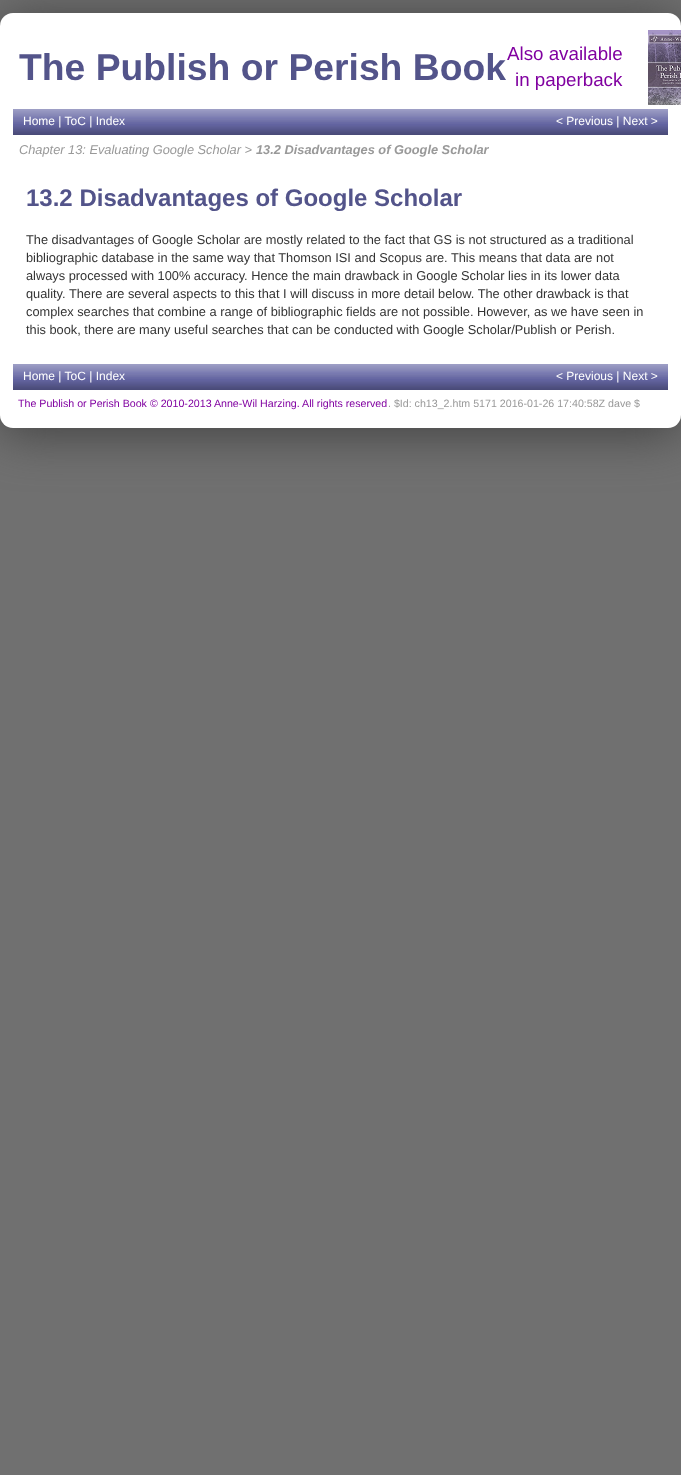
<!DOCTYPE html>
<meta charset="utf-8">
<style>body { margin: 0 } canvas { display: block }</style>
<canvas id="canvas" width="681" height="1475"></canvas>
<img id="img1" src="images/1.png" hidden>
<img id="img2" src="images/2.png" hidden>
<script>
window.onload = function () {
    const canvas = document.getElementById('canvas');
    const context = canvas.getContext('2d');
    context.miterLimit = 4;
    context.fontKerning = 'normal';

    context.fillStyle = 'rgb(112, 112, 112)';
    context.fillRect(0, 0, 681, 1475);
    context.fillStyle = 'rgb(64, 64, 64)';
    context.filter = 'blur(25px)';
    context.beginPath();
    context.roundRect(0, 18, 681, 415, 13);
    context.fill();
    context.filter = 'none';
    context.fillStyle = 'rgb(255, 255, 255)';
    context.beginPath();
    context.roundRect(0, 13, 681, 415, 13);
    context.fill();
    context.drawImage(document.getElementById('img1'), 648, 30, 33, 75);
    context.drawImage(document.getElementById('img2'), 13, 109, 655, 26);
    context.drawImage(document.getElementById('img2'), 13, 364, 655, 26);
    context.font = 'bold 37.3px Liberation Sans';
    context.fillStyle = 'rgb(83, 84, 138)';
    context.fillText('The Publish or Perish Book', 19, 80);
    context.font = '18.75px Liberation Sans';
    context.fillStyle = 'rgb(128, 0, 160)';
    context.fillText('Also available', 507, 60);
    context.fillText('in paperback', 515, 86);
    context.font = '12px Liberation Sans';
    context.fillStyle = 'rgb(255, 255, 255)';
    context.fillText('Home | ToC | Index', 23, 125);
    context.fillText('< Previous | Next >', 556, 125);
    context.font = 'italic 12.8px Liberation Sans';
    context.fillStyle = 'rgb(153, 153, 153)';
    context.fillText('Chapter 13: Evaluating Google Scholar >', 19, 154);
    context.font = 'italic bold 12.8px Liberation Sans';
    context.fillText('13.2 Disadvantages of Google Scholar', 256, 154);
    context.font = 'bold 24px Liberation Sans';
    context.fillStyle = 'rgb(83, 84, 138)';
    context.fillText('13.2 Disadvantages of Google Scholar', 26, 206);
    context.font = '12.8px Liberation Sans';
    context.fillStyle = 'rgb(51, 51, 51)';
    context.fillText('The disadvantages of Google Scholar are mostly related to the fact that GS is not structured as a traditional', 26, 244);
    context.fillText('bibliographic database in the same way that Thomson ISI and Scopus are. This means that data are not', 26, 262);
    context.fillText('always processed with 100% accuracy. Hence the main drawback in Google Scholar lies in its lower data', 26, 280);
    context.fillText('quality. There are several aspects to this that I will discuss in more detail below. The other drawback is that', 26, 298);
    context.fillText('complex searches that combine a range of bibliographic fields are not possible. However, as we have seen in', 26, 316);
    context.fillText('this book, there are many useful searches that can be conducted with Google Scholar/Publish or Perish.', 26, 334);
    context.font = '12px Liberation Sans';
    context.fillStyle = 'rgb(255, 255, 255)';
    context.fillText('Home | ToC | Index', 23, 380);
    context.fillText('< Previous | Next >', 556, 380);
    context.font = '10.65px Liberation Sans';
    context.fillStyle = 'rgb(128, 0, 160)';
    context.fillText('The Publish or Perish Book © 2010-2013 Anne-Wil Harzing. All rights reserved', 18, 407);
    context.fillStyle = 'rgb(153, 153, 153)';
    context.fillText('. $Id: ch13_2.htm 5171 2016-01-26 17:40:58Z dave $', 388, 407);
};
</script>
